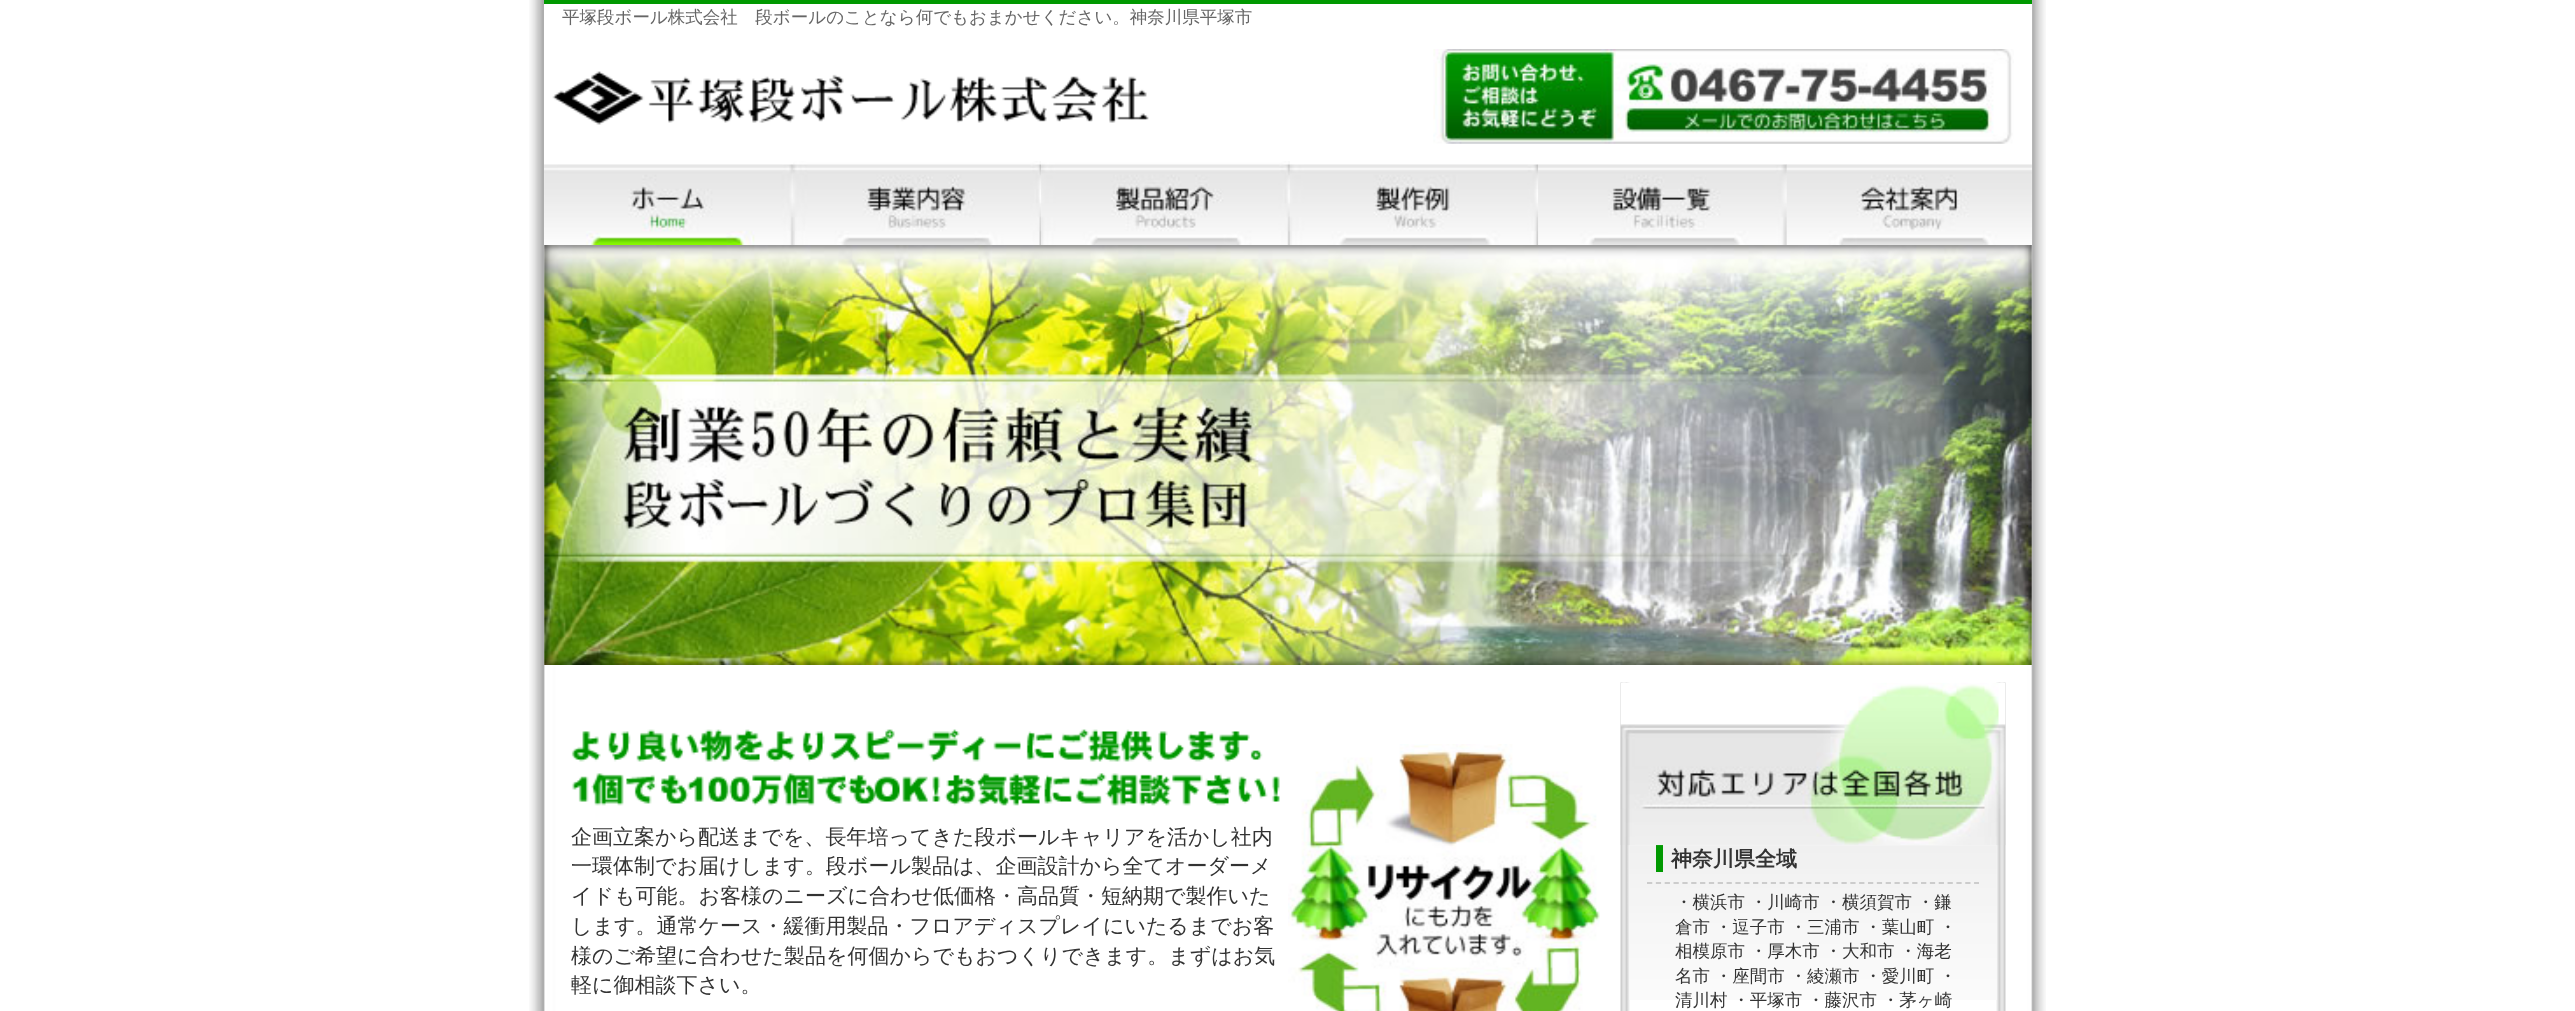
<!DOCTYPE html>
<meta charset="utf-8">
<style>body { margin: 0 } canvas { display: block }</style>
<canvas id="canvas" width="2575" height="1011"></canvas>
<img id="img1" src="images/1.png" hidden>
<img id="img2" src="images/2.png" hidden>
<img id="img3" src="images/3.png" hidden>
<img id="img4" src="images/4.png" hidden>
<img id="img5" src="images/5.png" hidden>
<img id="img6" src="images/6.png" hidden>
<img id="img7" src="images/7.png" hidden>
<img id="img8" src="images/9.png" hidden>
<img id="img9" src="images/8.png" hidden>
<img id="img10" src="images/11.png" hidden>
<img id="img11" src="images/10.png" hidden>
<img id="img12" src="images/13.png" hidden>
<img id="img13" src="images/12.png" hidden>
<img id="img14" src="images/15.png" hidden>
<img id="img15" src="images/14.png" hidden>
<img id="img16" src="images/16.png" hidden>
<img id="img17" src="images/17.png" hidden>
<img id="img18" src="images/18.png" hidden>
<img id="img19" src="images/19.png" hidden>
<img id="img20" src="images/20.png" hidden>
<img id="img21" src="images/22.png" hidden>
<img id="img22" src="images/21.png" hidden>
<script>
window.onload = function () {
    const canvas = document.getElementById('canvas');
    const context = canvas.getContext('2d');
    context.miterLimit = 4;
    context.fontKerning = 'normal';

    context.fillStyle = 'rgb(255, 255, 255)';
    context.fillRect(0, 0, 2575, 1011);
    context.drawImage(document.getElementById('img1'), 529, 0, 1517, 1011);
    context.fillRect(544, 4, 1488, 241);
    context.fillStyle = 'rgb(0, 153, 0)';
    context.fillRect(544, 0, 1488, 4);
    context.drawImage(document.getElementById('img2'), 552, 71, 597, 54);
    context.drawImage(document.getElementById('img3'), 1433, 49, 581, 95);
    context.drawImage(document.getElementById('img4'), 1446, 104, 559, 40);
    context.drawImage(document.getElementById('img5'), 544, 164, 249, 81);
    context.drawImage(document.getElementById('img6'), 544, 164, 249, 81);
    context.drawImage(document.getElementById('img7'), 793, 161, 249, 84);
    context.drawImage(document.getElementById('img8'), 1041, 161, 249, 84);
    context.drawImage(document.getElementById('img9'), 834, 164, 208, 81);
    context.drawImage(document.getElementById('img10'), 1289, 164, 250, 81);
    context.drawImage(document.getElementById('img11'), 1041, 164, 249, 81);
    context.drawImage(document.getElementById('img12'), 1538, 164, 249, 81);
    context.drawImage(document.getElementById('img13'), 1289, 164, 250, 81);
    context.drawImage(document.getElementById('img14'), 1786, 164, 246, 81);
    context.drawImage(document.getElementById('img15'), 1538, 164, 249, 81);
    context.drawImage(document.getElementById('img16'), 1786, 165, 246, 80);
    context.drawImage(document.getElementById('img17'), 544, 245, 1488, 420);
    context.drawImage(document.getElementById('img18'), 571, 729, 709, 77);
    context.drawImage(document.getElementById('img19'), 1288, 744, 312, 267);
    context.drawImage(document.getElementById('img20'), 1620, 682, 386, 329);
    context.drawImage(document.getElementById('img21'), 1629, 845, 368, 155);
    context.fillRect(1656, 845, 7, 27);
    context.drawImage(document.getElementById('img22'), 1620, 682, 386, 164);
    context.beginPath();
    context.moveTo(1647, 883);
    context.lineTo(1979, 883);
    context.strokeStyle = 'rgb(204, 204, 204)';
    context.lineWidth = 1.8;
    context.setLineDash([5.25, 3.59]);
    context.stroke();
    context.font = '500 17.5px WenQuanYi Zen Hei';
    context.fillStyle = 'rgb(102, 102, 102)';
    context.fillText('平塚段ボール株式会社　段ボールのことなら何でもおまかせください。神奈川県平塚市', 562, 23);
    context.font = '500 21px WenQuanYi Zen Hei';
    context.fillStyle = 'rgb(51, 51, 51)';
    context.fillText('企画立案から配送までを、長年培ってきた段ボールキャリアを活かし社内', 571, 844);
    context.fillText('一環体制でお届けします。段ボール製品は、企画設計から全てオーダーメ', 571, 873);
    context.fillText('イドも可能。お客様のニーズに合わせ低価格・高品質・短納期で製作いた', 571, 903);
    context.fillText('します。通常ケース・緩衝用製品・フロアディスプレイにいたるまでお客', 571, 933);
    context.fillText('様のご希望に合わせた製品を何個からでもおつくりできます。まずはお気', 571, 963);
    context.fillText('軽に御相談下さい。', 571, 992);
    context.font = 'bold 21px WenQuanYi Zen Hei';
    context.fillText('神奈川県全域', 1671, 866);
    context.wordSpacing = '-0.5px';
    context.font = '500 17.5px WenQuanYi Zen Hei';
    context.fillText('・横浜市 ・川崎市 ・横須賀市 ・鎌', 1675, 908);
    context.fillText('倉市 ・逗子市 ・三浦市 ・葉山町 ・', 1675, 933);
    context.fillText('相模原市 ・厚木市 ・大和市 ・海老', 1675, 957);
    context.fillText('名市 ・座間市 ・綾瀬市 ・愛川町 ・', 1675, 982);
    context.fillText('清川村 ・平塚市 ・藤沢市 ・茅ヶ崎', 1675, 1006);
};
</script>
